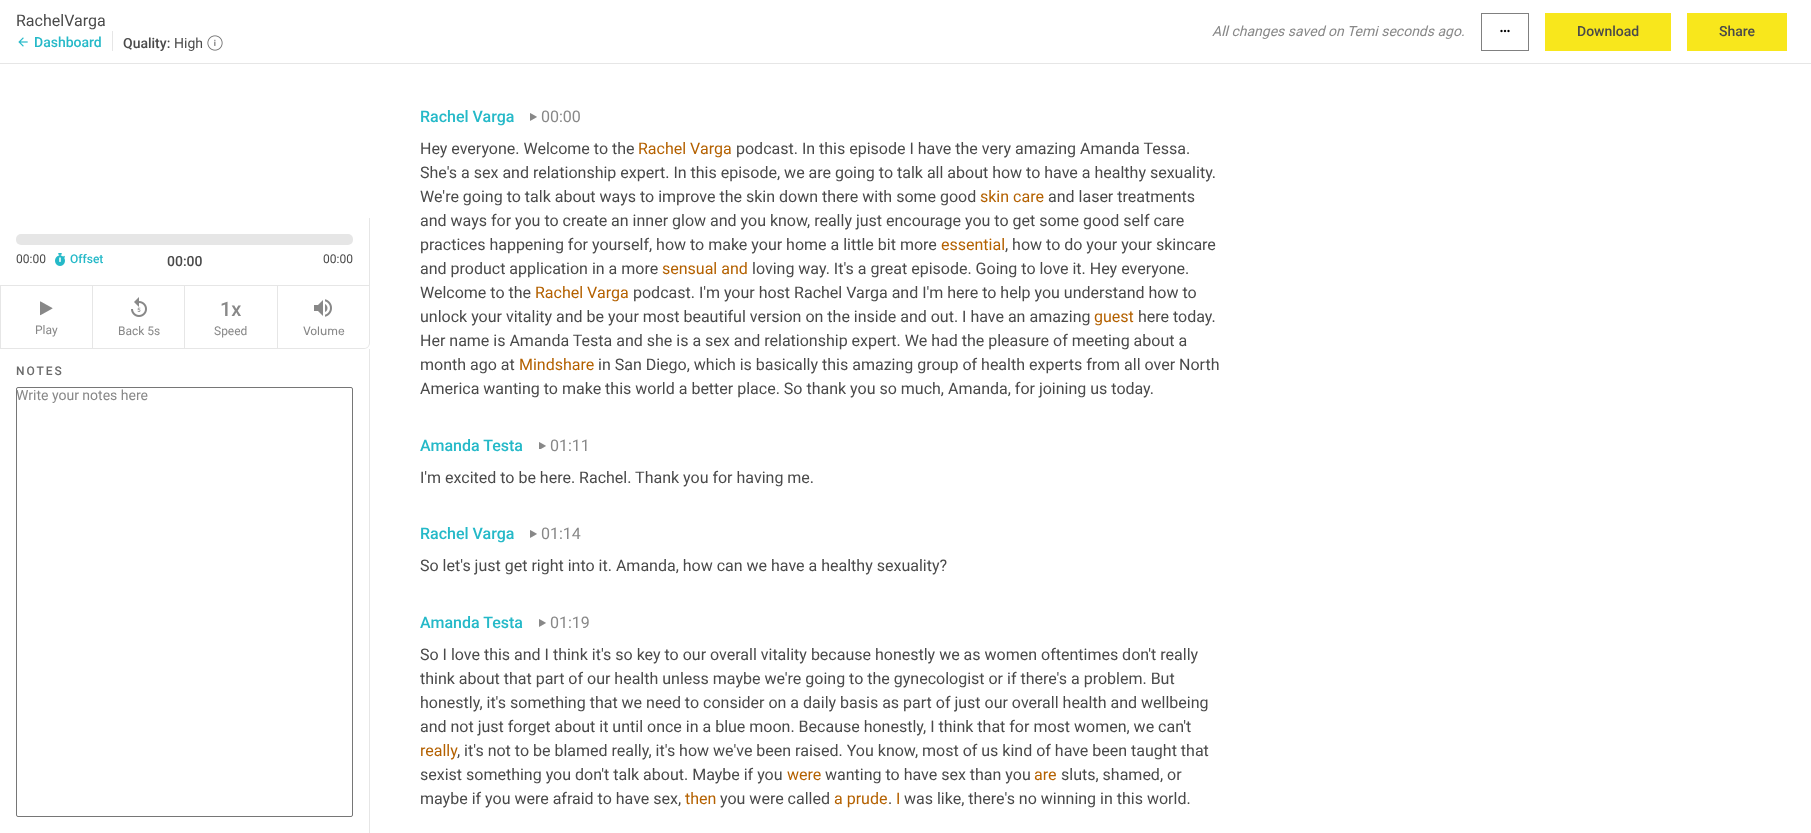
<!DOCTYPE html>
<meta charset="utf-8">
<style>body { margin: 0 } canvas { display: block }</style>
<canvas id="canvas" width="1811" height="833"></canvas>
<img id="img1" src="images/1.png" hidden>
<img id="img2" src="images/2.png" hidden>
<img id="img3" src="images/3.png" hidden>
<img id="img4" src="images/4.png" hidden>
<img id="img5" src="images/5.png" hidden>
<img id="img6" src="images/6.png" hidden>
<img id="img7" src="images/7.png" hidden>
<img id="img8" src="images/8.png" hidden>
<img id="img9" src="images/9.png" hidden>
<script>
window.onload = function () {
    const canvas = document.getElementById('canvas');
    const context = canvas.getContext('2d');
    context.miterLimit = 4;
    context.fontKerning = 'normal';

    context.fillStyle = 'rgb(255, 255, 255)';
    context.fillRect(0, 0, 1811, 833);
    context.fillStyle = 'rgb(230, 230, 230)';
    context.fillRect(0, 63, 1811, 1);
    context.drawImage(document.getElementById('img1'), 18, 37, 10, 10);
    context.fillRect(112, 31, 1, 20);
    context.drawImage(document.getElementById('img2'), 207, 35, 16, 16);
    context.strokeStyle = 'rgb(128, 128, 128)';
    context.strokeRect(1481.5, 13.5, 47, 37);
    context.drawImage(document.getElementById('img3'), 1500, 29, 10, 4);
    context.fillStyle = 'rgb(248, 231, 28)';
    context.fillRect(1545, 13, 126, 38);
    context.fillRect(1687, 13, 100, 38);
    context.fillStyle = 'rgb(230, 230, 230)';
    context.fillRect(369, 218, 1, 67);
    context.beginPath();
    context.roundRect(16, 234, 337, 11, 5);
    context.fill();
    context.drawImage(document.getElementById('img4'), 55, 253, 10, 13);
    context.strokeStyle = 'rgb(230, 230, 230)';
    context.strokeRect(0.5, 285.5, 92, 63);
    context.drawImage(document.getElementById('img5'), 40, 301, 13, 15);
    context.fillRect(93, 285, 185, 1);
    context.fillRect(184, 285, 1, 64);
    context.fillRect(93, 348, 92, 1);
    context.drawImage(document.getElementById('img6'), 131, 297, 16, 20);
    context.fillRect(277, 285, 1, 64);
    context.fillRect(185, 348, 93, 1);
    context.beginPath();
    context.moveTo(278, 285);
    context.lineTo(370, 285);
    context.lineTo(370, 343);
    context.bezierCurveTo(370, 346, 367, 349, 364, 349);
    context.lineTo(278, 349);
    context.closePath();
    context.moveTo(278, 286);
    context.lineTo(369, 286);
    context.lineTo(369, 343);
    context.bezierCurveTo(369, 346, 367, 348, 364, 348);
    context.lineTo(278, 348);
    context.closePath();
    context.fill('evenodd');
    context.drawImage(document.getElementById('img7'), 314, 299, 18, 18);
    context.fillRect(369, 349, 1, 484);
    context.beginPath();
    context.roundRect(16.5, 387.5, 336, 429, 1.5);
    context.strokeStyle = 'rgb(118, 118, 118)';
    context.stroke();
    context.drawImage(document.getElementById('img8'), 530, 113, 7, 8);
    context.drawImage(document.getElementById('img9'), 539, 442, 7, 7);
    context.drawImage(document.getElementById('img8'), 530, 530, 7, 8);
    context.drawImage(document.getElementById('img8'), 539, 619, 7, 8);
    context.font = '16px Roboto';
    context.fillStyle = 'rgb(74, 74, 74)';
    context.fillText('RachelVarga', 16, 26);
    context.font = '500 14px Roboto';
    context.fillStyle = 'rgb(37, 185, 200)';
    context.fillText('Dashboard', 34, 47);
    context.fillStyle = 'rgb(74, 74, 74)';
    context.fillText('Quality:', 123, 48);
    context.font = '14px Roboto';
    context.fillText('High', 174, 48);
    context.font = 'italic 14px Roboto';
    context.fillStyle = 'rgb(136, 136, 136)';
    context.fillText('All changes saved on Temi seconds ago.', 1212, 36);
    context.font = '500 14px Roboto';
    context.fillStyle = 'rgb(74, 74, 74)';
    context.fillText('Download', 1577, 36);
    context.fillText('Share', 1719, 36);
    context.font = '12px Roboto';
    context.fillText('00:00', 16, 263);
    context.font = '500 12px Roboto';
    context.fillStyle = 'rgb(37, 185, 200)';
    context.fillText('Offset', 70, 263);
    context.font = '500 14px Roboto';
    context.fillStyle = 'rgb(74, 74, 74)';
    context.fillText('00:00', 167, 266);
    context.font = '12px Roboto';
    context.fillText('00:00', 323, 263);
    context.fillStyle = 'rgb(136, 136, 136)';
    context.fillText('Play', 35, 334);
    context.fillText('Back 5s', 118, 335);
    context.font = '500 20px Roboto';
    context.fillText('1x', 220, 316);
    context.font = '12px Roboto';
    context.fillText('Speed', 214, 335);
    context.font = '12px Rubik';
    context.fillText('Volume', 303, 335);
    context.letterSpacing = '2px';
    context.font = '500 12px Roboto';
    context.fillStyle = 'rgb(106, 106, 106)';
    context.fillText('NOTES', 16, 375);
    context.letterSpacing = '0px';
    context.font = '14px Roboto';
    context.fillStyle = 'rgb(136, 136, 136)';
    context.fillText('Write your notes here', 16, 400);
    context.font = '500 16px Roboto';
    context.fillStyle = 'rgb(37, 185, 200)';
    context.fillText('Rachel Varga', 420, 122);
    context.font = '16px Roboto';
    context.fillStyle = 'rgb(136, 136, 136)';
    context.fillText('00:00', 541, 122);
    context.fillStyle = 'rgb(74, 74, 74)';
    context.fillText('Hey everyone. Welcome to the', 420, 154);
    context.fillStyle = 'rgb(180, 97, 0)';
    context.fillText('Rachel Varga', 638, 154);
    context.fillStyle = 'rgb(74, 74, 74)';
    context.fillText('podcast. In this episode I have the very amazing Amanda Tessa.', 736, 154);
    context.fillText('She\'s a sex and relationship expert. In this episode, we are going to talk all about how to have a healthy sexuality.', 420, 178);
    context.fillText('We\'re going to talk about ways to improve the skin down there with some good', 420, 202);
    context.fillStyle = 'rgb(180, 97, 0)';
    context.fillText('skin care', 980, 202);
    context.fillStyle = 'rgb(74, 74, 74)';
    context.fillText('and laser treatments', 1048, 202);
    context.fillText('and ways for you to create an inner glow and you know, really just encourage you to get some good self care', 420, 226);
    context.fillText('practices happening for yourself, how to make your home a little bit more', 420, 250);
    context.fillStyle = 'rgb(180, 97, 0)';
    context.fillText('essential', 941, 250);
    context.fillStyle = 'rgb(74, 74, 74)';
    context.fillText(', how to do your your skincare', 1005, 250);
    context.fillText('and product application in a more', 420, 274);
    context.fillStyle = 'rgb(180, 97, 0)';
    context.fillText('sensual and', 662, 274);
    context.fillStyle = 'rgb(74, 74, 74)';
    context.fillText('loving way. It\'s a great episode. Going to love it. Hey everyone.', 752, 274);
    context.fillText('Welcome to the', 420, 298);
    context.fillStyle = 'rgb(180, 97, 0)';
    context.fillText('Rachel Varga', 535, 298);
    context.fillStyle = 'rgb(74, 74, 74)';
    context.fillText('podcast. I\'m your host Rachel Varga and I\'m here to help you understand how to', 633, 298);
    context.fillText('unlock your vitality and be your most beautiful version on the inside and out. I have an amazing', 420, 322);
    context.fillStyle = 'rgb(180, 97, 0)';
    context.fillText('guest', 1094, 322);
    context.fillStyle = 'rgb(74, 74, 74)';
    context.fillText('here today.', 1138, 322);
    context.fillText('Her name is Amanda Testa and she is a sex and relationship expert. We had the pleasure of meeting about a', 420, 346);
    context.fillText('month ago at', 420, 370);
    context.fillStyle = 'rgb(180, 97, 0)';
    context.fillText('Mindshare', 519, 370);
    context.fillStyle = 'rgb(74, 74, 74)';
    context.fillText('in San Diego, which is basically this amazing group of health experts from all over North', 598, 370);
    context.fillText('America wanting to make this world a better place. So thank you so much, Amanda, for joining us today.', 420, 394);
    context.font = '500 16px Roboto';
    context.fillStyle = 'rgb(37, 185, 200)';
    context.fillText('Amanda Testa', 420, 451);
    context.font = '16px Roboto';
    context.fillStyle = 'rgb(136, 136, 136)';
    context.fillText('01:11', 550, 451);
    context.fillStyle = 'rgb(74, 74, 74)';
    context.fillText('I\'m excited to be here. Rachel. Thank you for having me.', 420, 483);
    context.font = '500 16px Roboto';
    context.fillStyle = 'rgb(37, 185, 200)';
    context.fillText('Rachel Varga', 420, 539);
    context.font = '16px Roboto';
    context.fillStyle = 'rgb(136, 136, 136)';
    context.fillText('01:14', 541, 539);
    context.fillStyle = 'rgb(74, 74, 74)';
    context.fillText('So let\'s just get right into it. Amanda, how can we have a healthy sexuality?', 420, 571);
    context.font = '500 16px Roboto';
    context.fillStyle = 'rgb(37, 185, 200)';
    context.fillText('Amanda Testa', 420, 628);
    context.font = '16px Roboto';
    context.fillStyle = 'rgb(136, 136, 136)';
    context.fillText('01:19', 550, 628);
    context.fillStyle = 'rgb(74, 74, 74)';
    context.fillText('So I love this and I think it\'s so key to our overall vitality because honestly we as women oftentimes don\'t really', 420, 660);
    context.fillText('think about that part of our health unless maybe we\'re going to the gynecologist or if there\'s a problem. But', 420, 684);
    context.fillText('honestly, it\'s something that we need to consider on a daily basis as part of just our overall health and wellbeing', 420, 708);
    context.fillText('and not just forget about it until once in a blue moon. Because honestly, I think that for most women, we can\'t', 420, 732);
    context.fillStyle = 'rgb(180, 97, 0)';
    context.fillText('really', 420, 756);
    context.fillStyle = 'rgb(74, 74, 74)';
    context.fillText(', it\'s not to be blamed really, it\'s how we\'ve been raised. You know, most of us kind of have been taught that', 457, 756);
    context.fillText('sexist something you don\'t talk about. Maybe if you', 420, 780);
    context.fillStyle = 'rgb(180, 97, 0)';
    context.fillText('were', 787, 780);
    context.fillStyle = 'rgb(74, 74, 74)';
    context.fillText('wanting to have sex than you', 825, 780);
    context.fillStyle = 'rgb(180, 97, 0)';
    context.fillText('are', 1034, 780);
    context.fillStyle = 'rgb(74, 74, 74)';
    context.fillText('sluts, shamed, or', 1061, 780);
    context.fillText('maybe if you were afraid to have sex,', 420, 804);
    context.fillStyle = 'rgb(180, 97, 0)';
    context.fillText('then', 685, 804);
    context.fillStyle = 'rgb(74, 74, 74)';
    context.fillText('you were called', 720, 804);
    context.fillStyle = 'rgb(180, 97, 0)';
    context.fillText('a prude', 834, 804);
    context.fillStyle = 'rgb(74, 74, 74)';
    context.fillText('.', 888, 804);
    context.fillStyle = 'rgb(180, 97, 0)';
    context.fillText('I', 896, 804);
    context.fillStyle = 'rgb(74, 74, 74)';
    context.fillText('was like, there\'s no winning in this world.', 904, 804);
};
</script>
